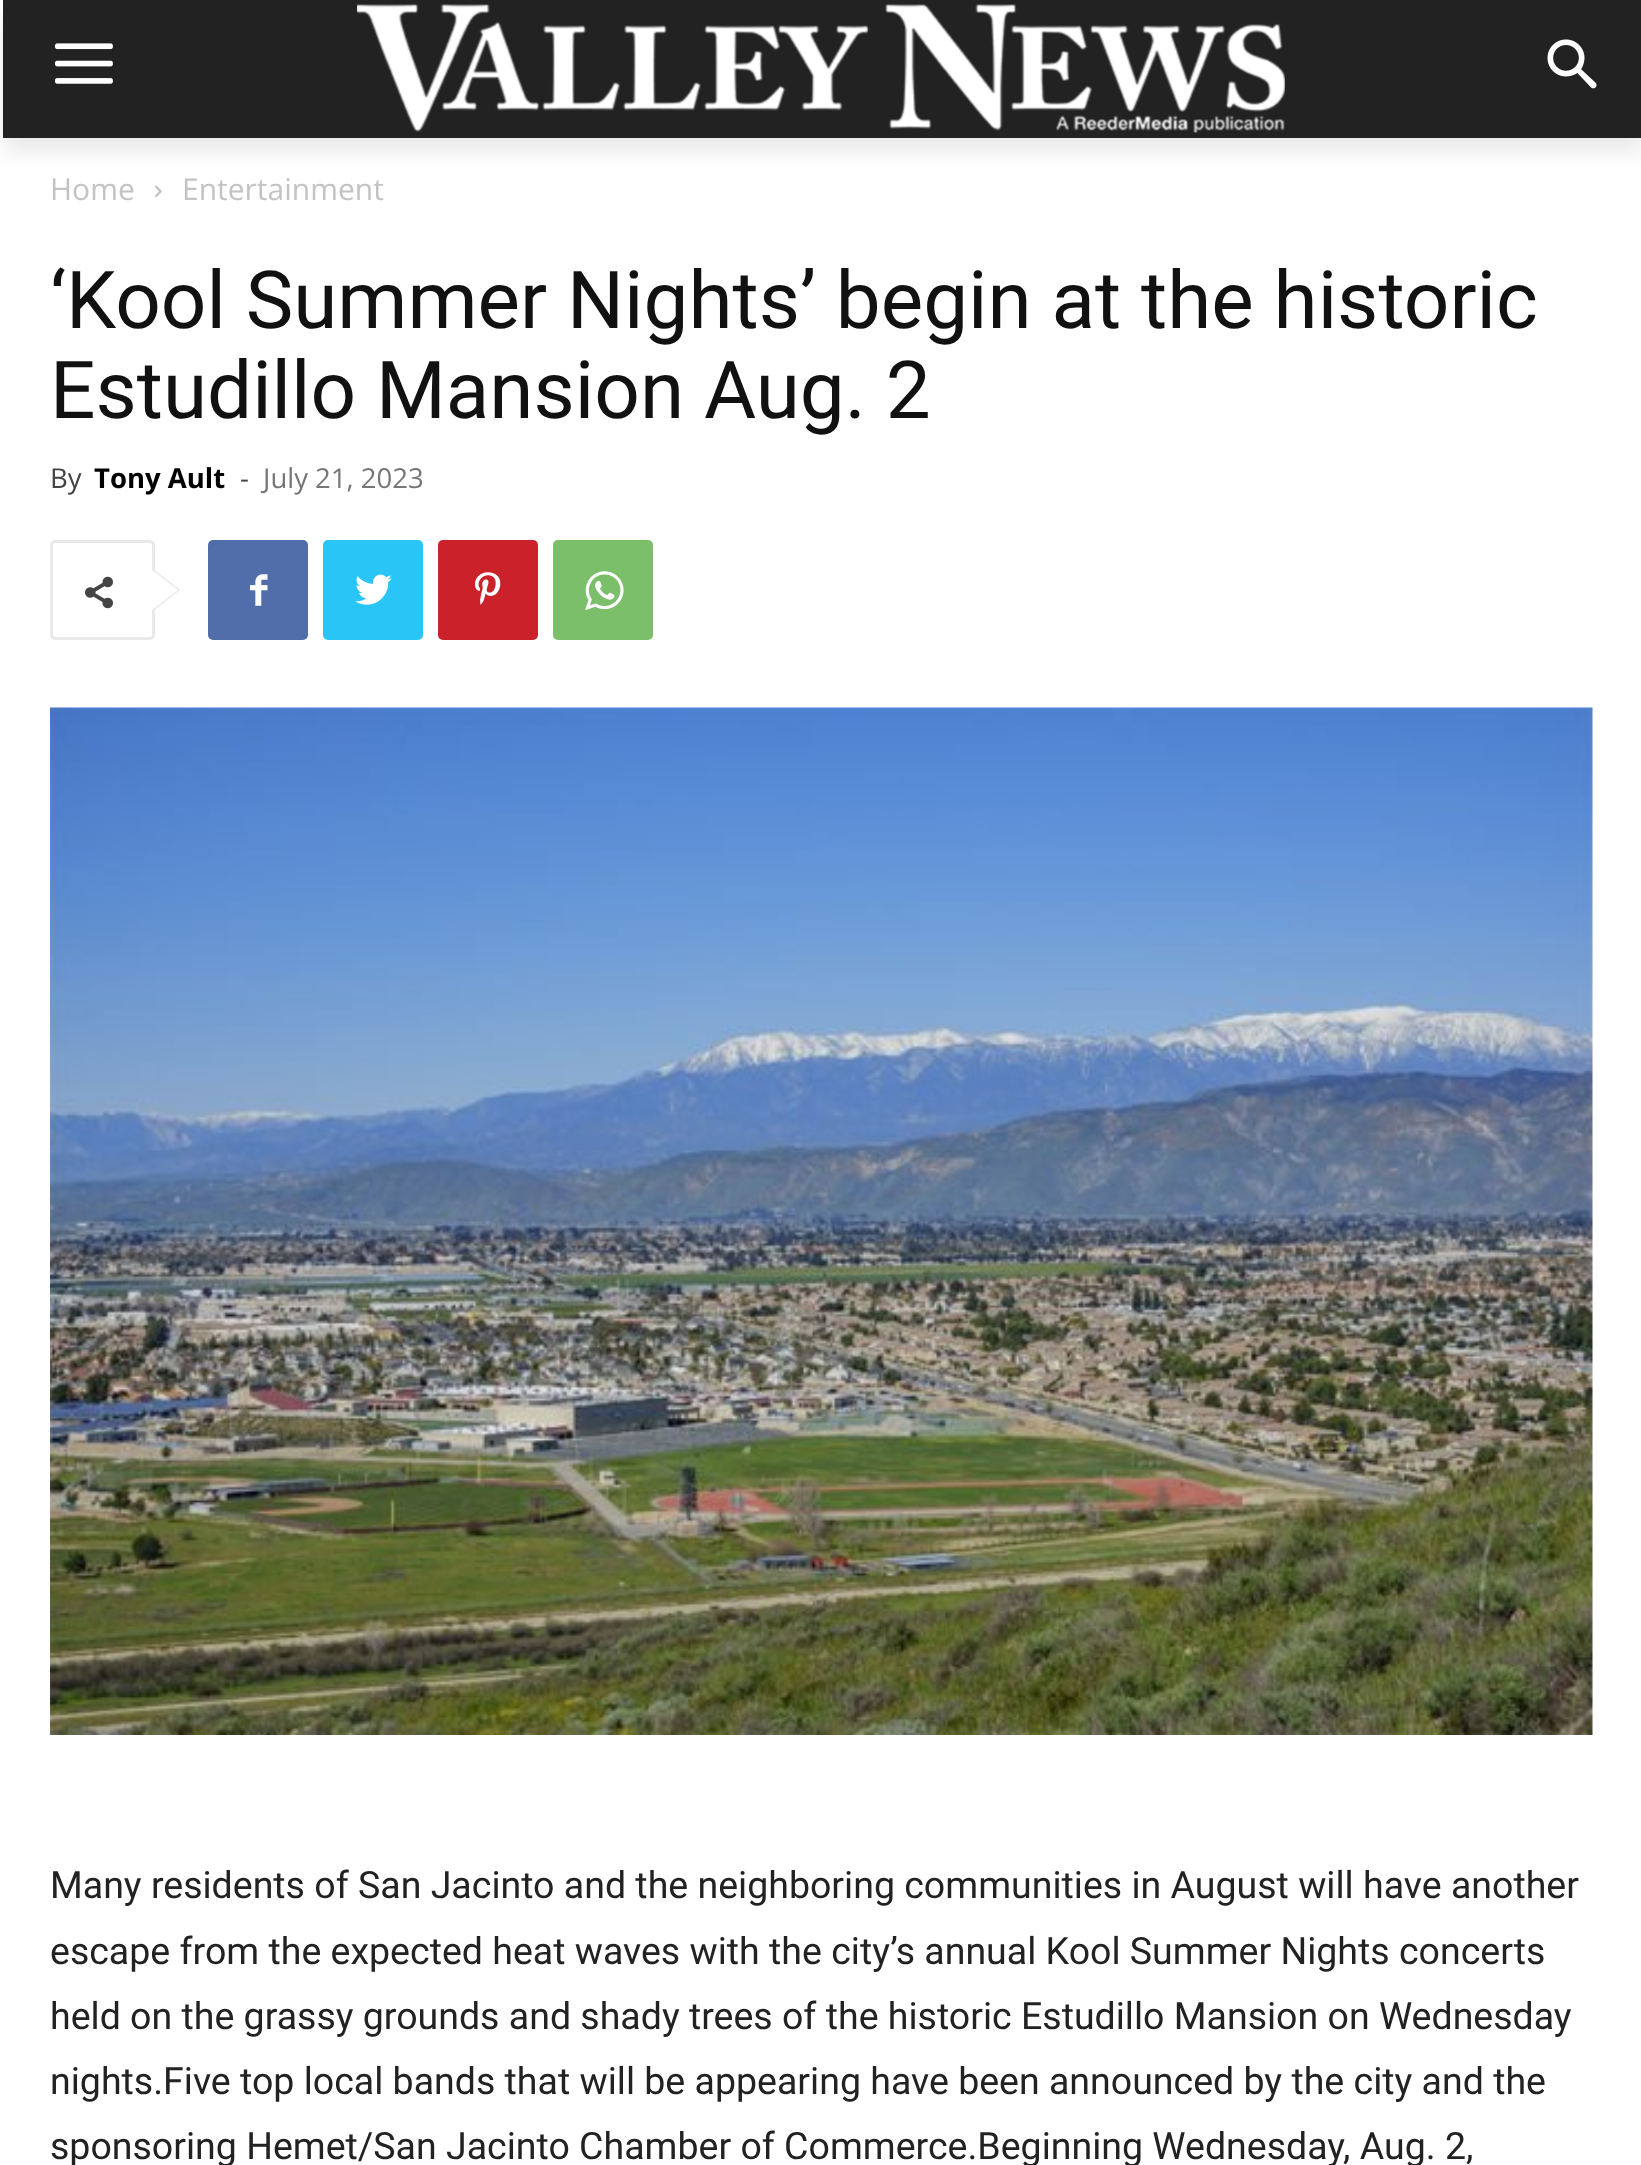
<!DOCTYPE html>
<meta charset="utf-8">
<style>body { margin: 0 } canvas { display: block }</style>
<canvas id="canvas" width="1641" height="2165"></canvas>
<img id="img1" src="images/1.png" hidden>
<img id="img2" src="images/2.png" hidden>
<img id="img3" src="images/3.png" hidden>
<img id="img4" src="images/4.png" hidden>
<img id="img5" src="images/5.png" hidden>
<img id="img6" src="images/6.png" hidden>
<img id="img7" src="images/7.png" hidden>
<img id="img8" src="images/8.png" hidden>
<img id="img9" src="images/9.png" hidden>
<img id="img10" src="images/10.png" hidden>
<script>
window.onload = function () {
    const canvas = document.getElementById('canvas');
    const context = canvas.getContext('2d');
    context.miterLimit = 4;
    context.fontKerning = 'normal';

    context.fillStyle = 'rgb(255, 255, 255)';
    context.fillRect(0, 0, 1641, 2165);
    context.fillStyle = 'rgb(34, 34, 34)';
    context.fillRect(3, 0, 1638, 138);
    context.drawImage(document.getElementById('img1'), 55, 43, 58, 41);
    context.drawImage(document.getElementById('img2'), 357, 4, 928, 129);
    context.drawImage(document.getElementById('img3'), 1547, 39, 50, 50);
    context.save();
    context.beginPath();
    context.moveTo(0, 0);
    context.lineTo(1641, 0);
    context.lineTo(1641, 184);
    context.lineTo(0, 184);
    context.closePath();
    context.moveTo(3, 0);
    context.lineTo(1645, 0);
    context.lineTo(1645, 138);
    context.lineTo(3, 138);
    context.closePath();
    context.clip('evenodd');
    context.fillStyle = 'rgba(0, 0, 0, 0.08)';
    context.filter = 'blur(10px)';
    context.beginPath();
    context.rect(3, 15, 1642, 138);
    context.fill();
    context.filter = 'none';
    context.restore();
    context.drawImage(document.getElementById('img4'), 155, 185, 7, 13);
    context.beginPath();
    context.roundRect(51.5, 541.5, 102, 97, 3.5);
    context.strokeStyle = 'rgb(233, 233, 233)';
    context.lineWidth = 3;
    context.stroke();
    context.fillStyle = 'rgb(233, 233, 233)';
    context.beginPath();
    context.moveTo(152, 612);
    context.lineTo(152, 568);
    context.lineTo(180, 590);
    context.closePath();
    context.fill();
    context.drawImage(document.getElementById('img5'), 85, 576, 28, 33);
    context.fillStyle = 'rgb(255, 255, 255)';
    context.beginPath();
    context.moveTo(152, 610);
    context.lineTo(152, 570);
    context.lineTo(178, 590);
    context.closePath();
    context.fill();
    context.fillStyle = 'rgb(81, 110, 171)';
    context.beginPath();
    context.roundRect(208, 540, 100, 100, 5);
    context.fill();
    context.drawImage(document.getElementById('img6'), 250, 574, 18, 32);
    context.fillStyle = 'rgb(41, 197, 246)';
    context.beginPath();
    context.roundRect(323, 540, 100, 100, 5);
    context.fill();
    context.drawImage(document.getElementById('img7'), 355, 574, 37, 31);
    context.fillStyle = 'rgb(202, 33, 42)';
    context.beginPath();
    context.roundRect(438, 540, 100, 100, 5);
    context.fill();
    context.drawImage(document.getElementById('img8'), 475, 572, 26, 33);
    context.fillStyle = 'rgb(123, 191, 106)';
    context.beginPath();
    context.roundRect(553, 540, 100, 100, 5);
    context.fill();
    context.drawImage(document.getElementById('img9'), 585, 571, 39, 39);
    context.drawImage(document.getElementById('img10'), 50, 707, 1543, 1028);
    context.font = '30px Open Sans';
    context.fillStyle = 'rgb(195, 195, 195)';
    context.fillText('Home', 50, 200);
    context.fillText('Entertainment', 182, 200);
    context.font = '80px Roboto';
    context.fillStyle = 'rgb(17, 17, 17)';
    context.fillText('‘Kool Summer Nights’ begin at the historic', 50, 328);
    context.fillText('Estudillo Mansion Aug. 2', 50, 418);
    context.font = '27.5px Open Sans';
    context.fillStyle = 'rgb(68, 68, 68)';
    context.fillText('By', 50, 488);
    context.font = 'bold 27.5px Open Sans';
    context.fillStyle = 'rgb(0, 0, 0)';
    context.fillText('Tony Ault', 94, 488);
    context.font = '27.5px Open Sans';
    context.fillStyle = 'rgb(68, 68, 68)';
    context.fillText('-', 240, 488);
    context.fillStyle = 'rgb(118, 118, 118)';
    context.fillText('July 21, 2023', 263, 488);
    context.font = '37.5px Roboto';
    context.fillStyle = 'rgb(34, 34, 34)';
    context.fillText('Many residents of San Jacinto and the neighboring communities in August will have another', 50, 1898);
    context.fillText('escape from the expected heat waves with the city’s annual Kool Summer Nights concerts', 50, 1964);
    context.fillText('held on the grassy grounds and shady trees of the historic Estudillo Mansion on Wednesday', 50, 2029);
    context.fillText('nights.Five top local bands that will be appearing have been announced by the city and the', 50, 2094);
    context.fillText('sponsoring Hemet/San Jacinto Chamber of Commerce.Beginning Wednesday, Aug. 2,', 50, 2159);
};
</script>
